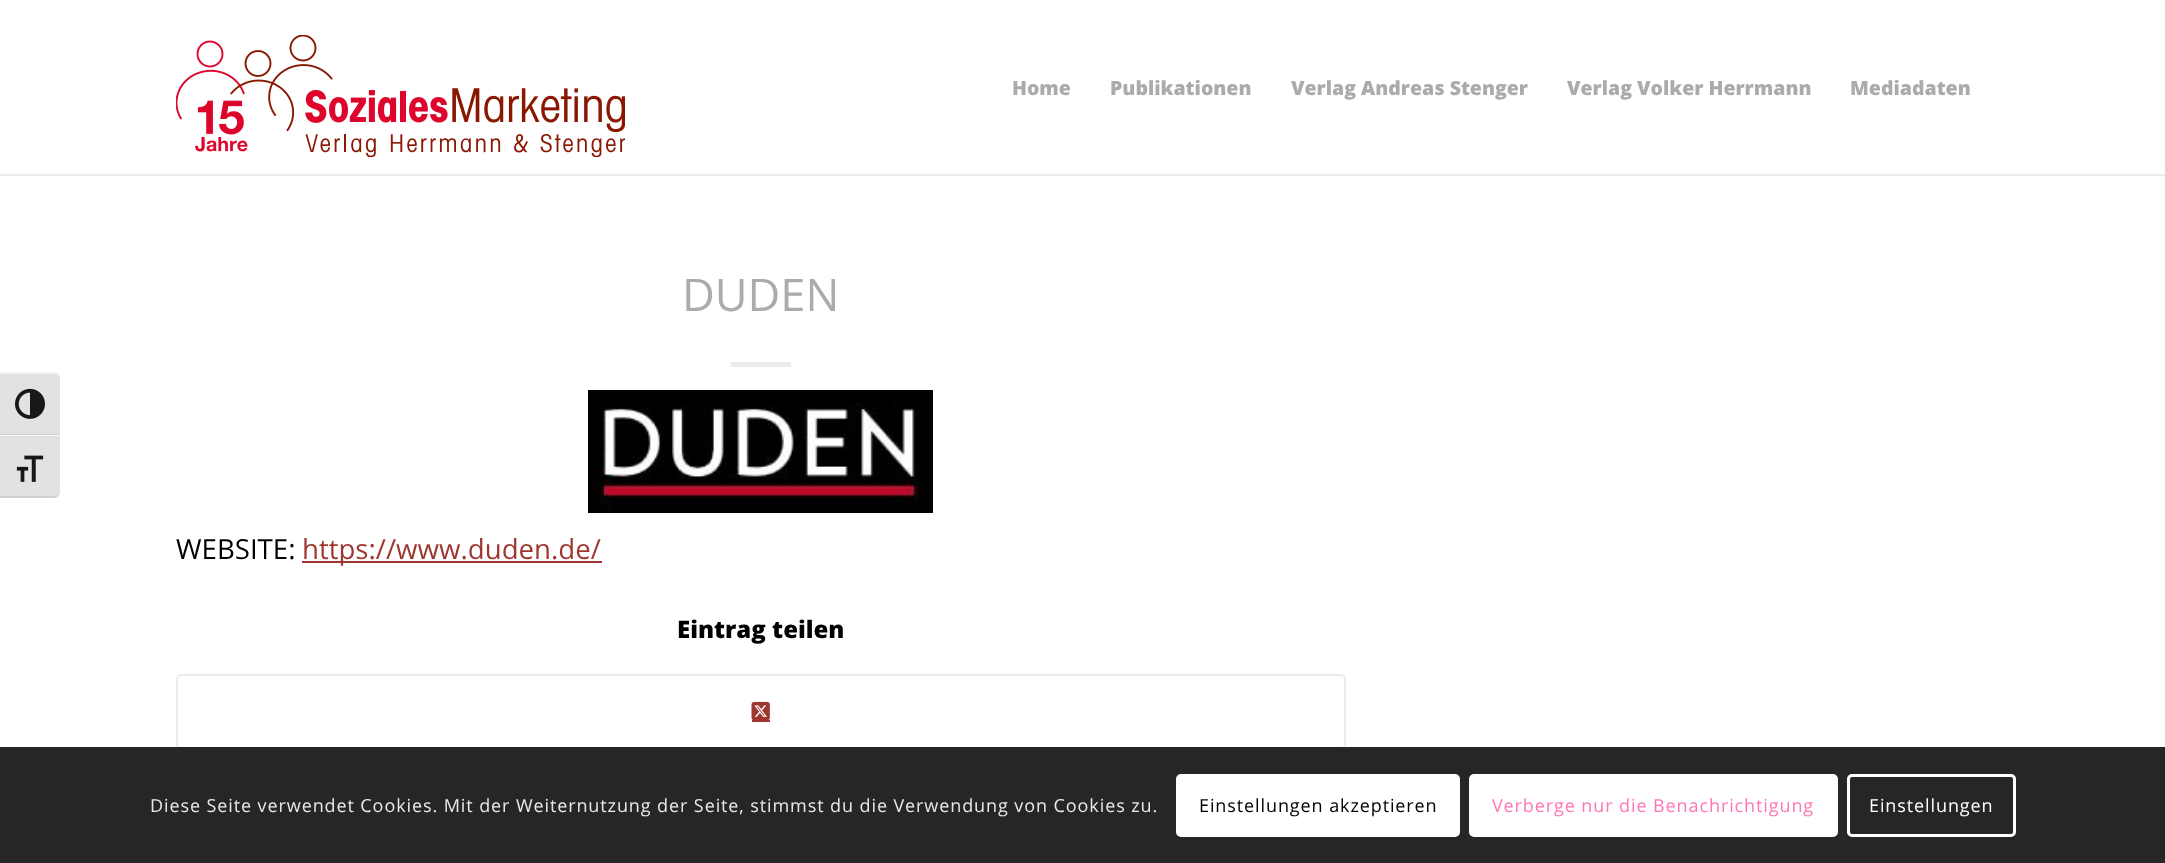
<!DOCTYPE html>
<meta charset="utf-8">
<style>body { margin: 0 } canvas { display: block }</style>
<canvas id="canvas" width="2165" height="863"></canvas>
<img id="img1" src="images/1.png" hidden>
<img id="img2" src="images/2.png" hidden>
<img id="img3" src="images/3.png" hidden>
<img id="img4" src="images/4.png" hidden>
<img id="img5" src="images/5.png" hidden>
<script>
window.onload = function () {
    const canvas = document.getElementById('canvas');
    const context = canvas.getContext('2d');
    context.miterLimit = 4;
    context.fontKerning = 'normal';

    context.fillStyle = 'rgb(255, 255, 255)';
    context.fillRect(0, 0, 2165, 863);
    context.fillStyle = 'rgb(226, 226, 226)';
    context.beginPath();
    context.roundRect(0, 372, 60, 63, [0, 6, 0, 0]);
    context.fill();
    context.fillStyle = 'rgb(245, 245, 245)';
    context.beginPath();
    context.moveTo(0, 372);
    context.lineTo(0, 374);
    context.lineTo(54, 374);
    context.bezierCurveTo(57, 374, 60, 376, 60, 378);
    context.bezierCurveTo(60, 375, 57, 372, 54, 372);
    context.closePath();
    context.fill();
    context.fillStyle = 'rgb(210, 210, 210)';
    context.fillRect(0, 434, 60, 1);
    context.drawImage(document.getElementById('img1'), 15, 388, 30, 31);
    context.fillStyle = 'rgb(226, 226, 226)';
    context.beginPath();
    context.roundRect(0, 435, 60, 63, [0, 0, 6, 0]);
    context.fill();
    context.fillStyle = 'rgb(245, 245, 245)';
    context.fillRect(0, 435, 60, 1);
    context.fillStyle = 'rgb(210, 210, 210)';
    context.beginPath();
    context.moveTo(0, 496);
    context.lineTo(0, 498);
    context.lineTo(54, 498);
    context.bezierCurveTo(57, 498, 60, 495, 60, 492);
    context.bezierCurveTo(60, 494, 57, 496, 54, 496);
    context.closePath();
    context.fill();
    context.drawImage(document.getElementById('img2'), 16, 455, 28, 27);
    context.fillStyle = 'rgb(235, 235, 235)';
    context.fillRect(0, 174, 2165, 2);
    context.drawImage(document.getElementById('img3'), 176, 35, 449, 122);
    context.fillRect(731, 362, 60, 5);
    context.drawImage(document.getElementById('img4'), 588, 390, 345, 123);
    context.fillStyle = 'rgb(158, 55, 47)';
    context.fillRect(302, 561, 300, 2);
    context.beginPath();
    context.roundRect(177, 675, 1168, 73, 4);
    context.strokeStyle = 'rgb(235, 235, 235)';
    context.lineWidth = 2;
    context.stroke();
    context.drawImage(document.getElementById('img5'), 751, 701, 19, 19);
    context.fillRect(752, 720, 18, 2);
    context.fillStyle = 'rgba(0, 0, 0, 0.85)';
    context.fillRect(0, 747, 2165, 116);
    context.fillStyle = 'rgb(255, 255, 255)';
    context.beginPath();
    context.roundRect(1176, 774, 284, 63, 5);
    context.fill();
    context.beginPath();
    context.roundRect(1470.5, 775.5, 366, 60, 3.5);
    context.fill();
    context.strokeStyle = 'rgb(255, 255, 255)';
    context.lineWidth = 3;
    context.stroke();
    context.beginPath();
    context.roundRect(1848.5, 775.5, 166, 60, 3.5);
    context.stroke();
    context.font = '800 19.5px Open Sans';
    context.fillStyle = 'rgb(171, 171, 171)';
    context.fillText('Home', 1012, 95);
    context.fillText('Publikationen', 1110, 95);
    context.fillText('Verlag Andreas Stenger', 1291, 95);
    context.fillText('Verlag Volker Herrmann', 1567, 95);
    context.fillText('Mediadaten', 1850, 95);
    context.font = '45px Open Sans';
    context.fillText('DUDEN', 682, 311);
    context.font = '27.6px Open Sans';
    context.fillStyle = 'rgb(0, 0, 0)';
    context.fillText('WEBSITE:', 176, 559);
    context.fillStyle = 'rgb(158, 55, 47)';
    context.fillText('https://www.duden.de/', 302, 559);
    context.font = '800 24px Open Sans';
    context.fillStyle = 'rgb(0, 0, 0)';
    context.fillText('Eintrag teilen', 677, 638);
    context.letterSpacing = '0.9px';
    context.font = '18px Open Sans';
    context.fillStyle = 'rgb(233, 233, 233)';
    context.fillText('Diese Seite verwendet Cookies. Mit der Weiternutzung der Seite, stimmst du die Verwendung von Cookies zu.', 150, 812);
    context.fillStyle = 'rgb(0, 0, 0)';
    context.fillText('Einstellungen akzeptieren', 1199, 812);
    context.fillStyle = 'rgb(255, 117, 181)';
    context.fillText('Verberge nur die Benachrichtigung', 1492, 812);
    context.fillStyle = 'rgb(255, 255, 255)';
    context.fillText('Einstellungen', 1869, 812);
};
</script>
